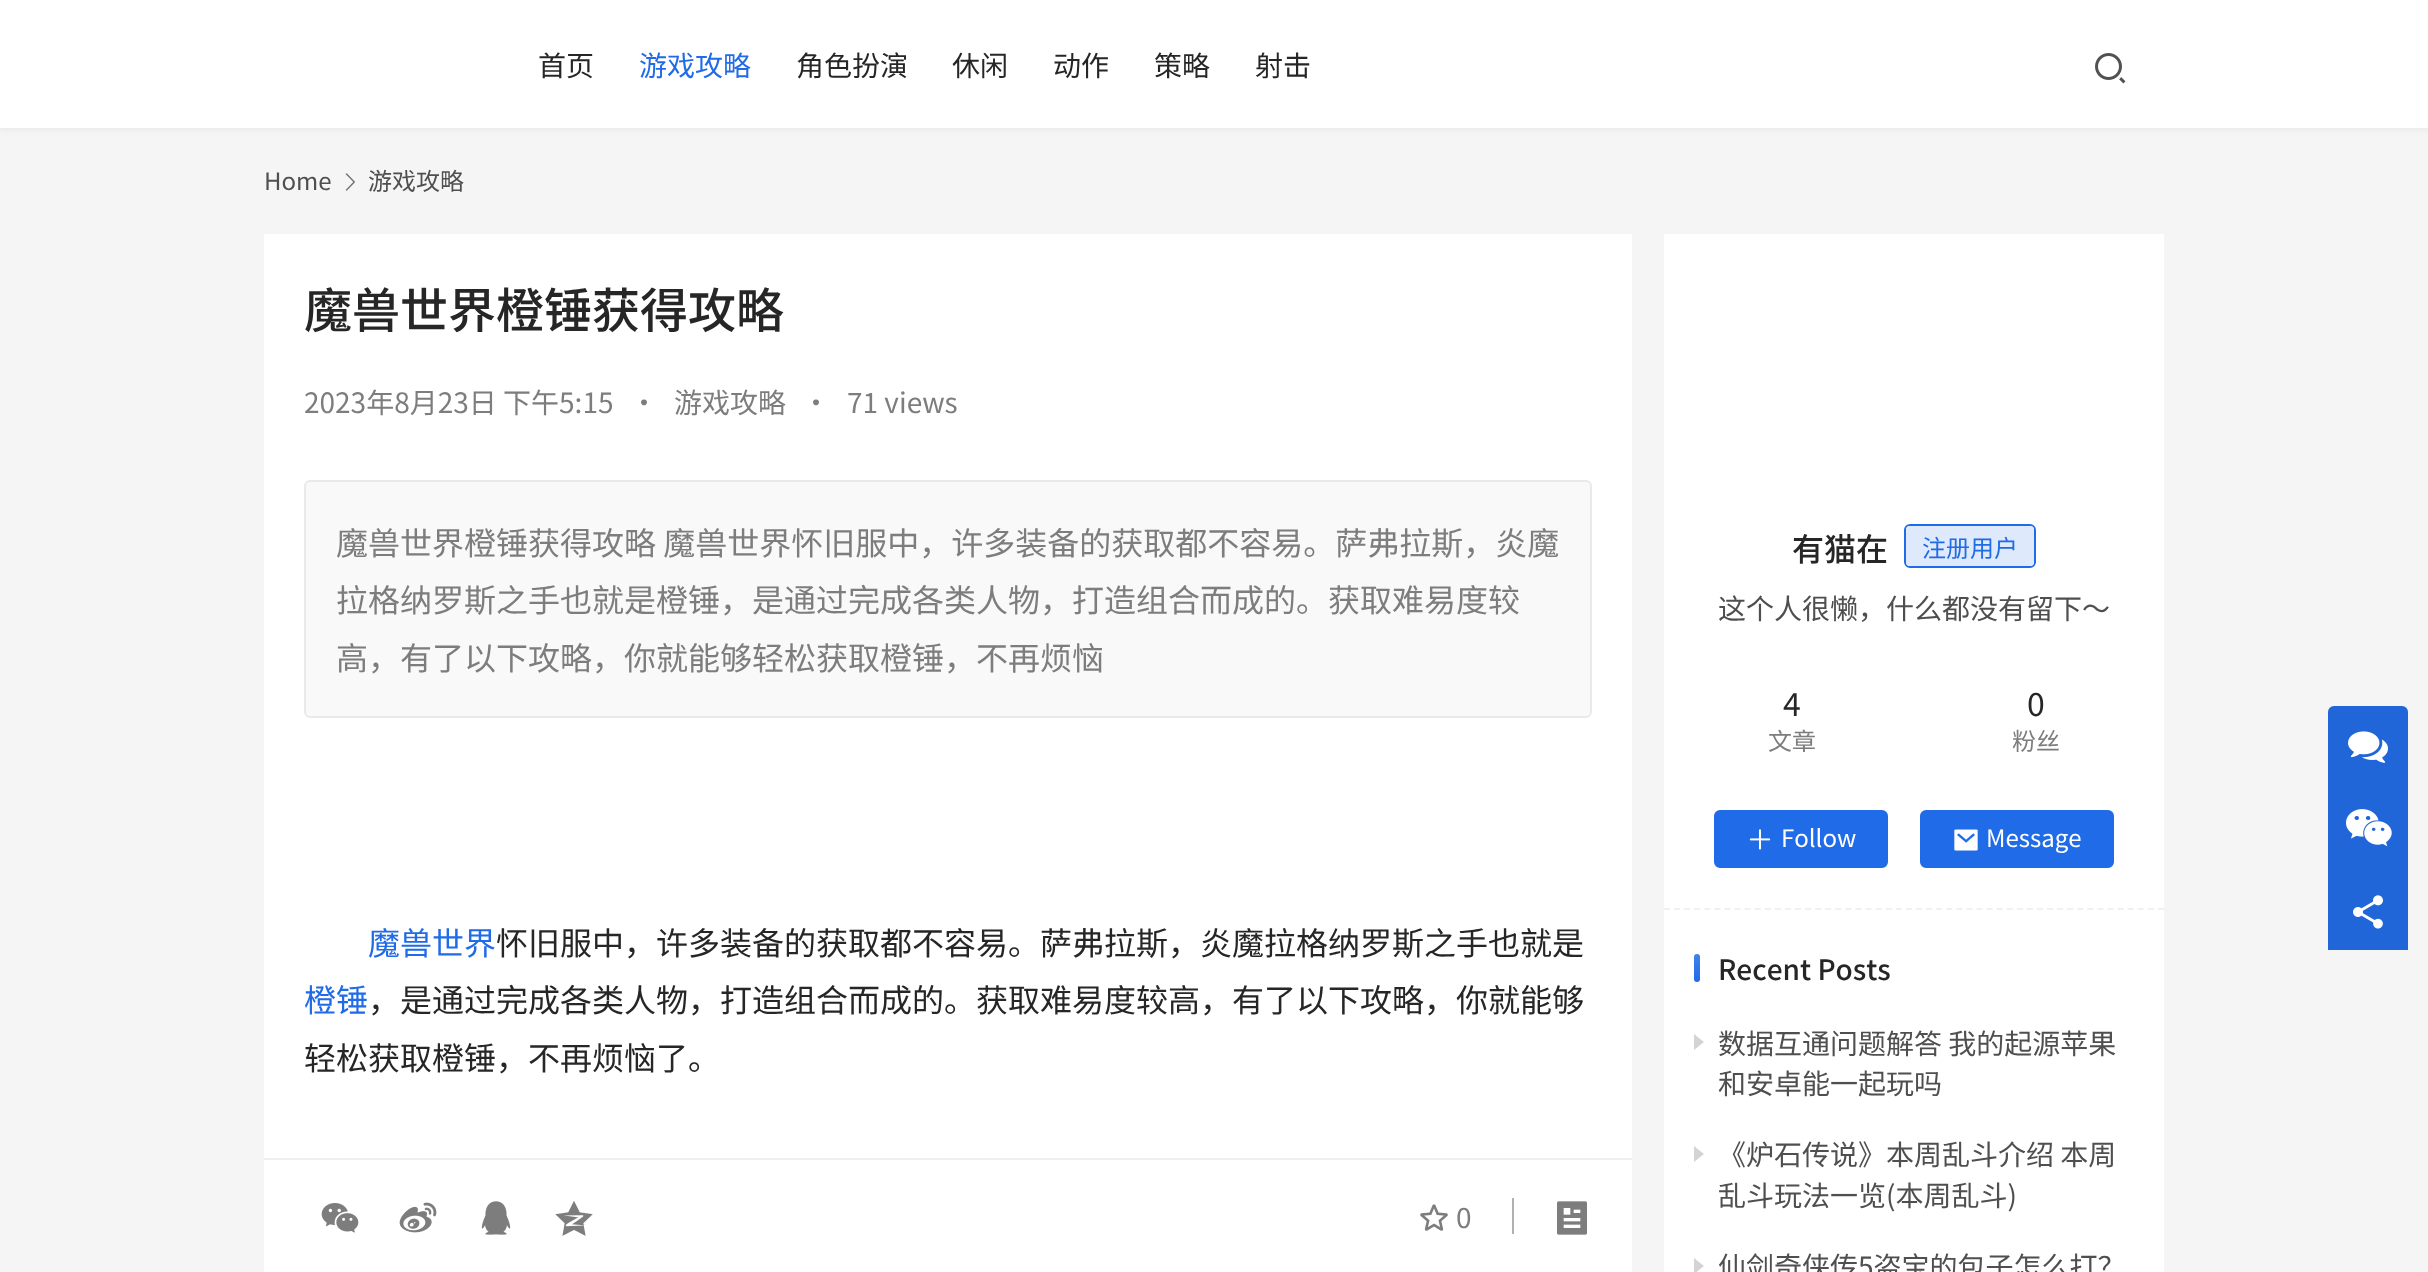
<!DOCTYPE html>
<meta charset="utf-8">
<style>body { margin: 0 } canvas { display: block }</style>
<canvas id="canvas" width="2428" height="1272"></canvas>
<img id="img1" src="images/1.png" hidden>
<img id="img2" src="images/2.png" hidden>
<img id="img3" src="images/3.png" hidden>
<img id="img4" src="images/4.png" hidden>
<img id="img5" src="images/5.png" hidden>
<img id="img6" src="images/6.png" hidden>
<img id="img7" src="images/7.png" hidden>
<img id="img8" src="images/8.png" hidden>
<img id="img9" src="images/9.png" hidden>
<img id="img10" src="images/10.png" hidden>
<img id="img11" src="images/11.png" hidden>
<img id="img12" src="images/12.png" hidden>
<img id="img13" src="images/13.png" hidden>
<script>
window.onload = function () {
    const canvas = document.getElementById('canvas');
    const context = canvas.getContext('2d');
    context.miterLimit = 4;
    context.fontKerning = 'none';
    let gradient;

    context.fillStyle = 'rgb(245, 245, 245)';
    context.fillRect(0, 0, 2428, 1272);
    context.fillStyle = 'rgba(38, 38, 38, 0.06)';
    context.filter = 'blur(3px)';
    context.beginPath();
    context.rect(-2, -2, 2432, 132);
    context.fill();
    context.filter = 'none';
    context.fillStyle = 'rgb(255, 255, 255)';
    context.fillRect(0, 0, 2428, 128);
    context.drawImage(document.getElementById('img1'), 2095, 53, 31, 31);
    context.drawImage(document.getElementById('img2'), 345, 173, 10, 18);
    context.fillRect(264, 234, 1368, 924);
    context.fillStyle = 'rgb(249, 249, 249)';
    context.beginPath();
    context.roundRect(305, 481, 1286, 236, 5);
    context.fill();
    context.strokeStyle = 'rgb(234, 234, 234)';
    context.lineWidth = 2;
    context.stroke();
    context.fillStyle = 'rgb(255, 255, 255)';
    context.fillRect(264, 1160, 1368, 112);
    context.fillStyle = 'rgb(240, 240, 240)';
    context.fillRect(264, 1158, 1368, 2);
    context.drawImage(document.getElementById('img3'), 321, 1203, 38, 30);
    context.drawImage(document.getElementById('img4'), 399, 1202, 38, 31);
    context.drawImage(document.getElementById('img5'), 481, 1201, 30, 34);
    context.drawImage(document.getElementById('img6'), 555, 1201, 38, 35);
    context.drawImage(document.getElementById('img7'), 1420, 1204, 28, 27);
    context.fillStyle = 'rgb(177, 177, 177)';
    context.fillRect(1512, 1198, 2, 36);
    context.drawImage(document.getElementById('img8'), 1557, 1201, 30, 34);
    context.fillStyle = 'rgb(255, 255, 255)';
    context.fillRect(1664, 234, 500, 1038);
    context.beginPath();
    context.roundRect(1905, 525, 130, 42, 5);
    context.strokeStyle = 'rgb(32, 107, 231)';
    context.stroke();
    context.beginPath();
    context.roundRect(1906, 526, 128, 40, 4);
    context.fill();
    context.fillStyle = 'rgb(32, 107, 231)';
    context.beginPath();
    context.roundRect(1715, 811, 172, 56, 5);
    context.fill();
    context.stroke();
    context.drawImage(document.getElementById('img9'), 1749, 829, 22, 21);
    context.beginPath();
    context.roundRect(1921, 811, 192, 56, 5);
    context.fill();
    context.stroke();
    context.drawImage(document.getElementById('img10'), 1954, 829, 24, 22);
    context.beginPath();
    context.moveTo(1664, 909);
    context.lineTo(2164, 909);
    context.strokeStyle = 'rgb(240, 240, 240)';
    context.setLineDash([6, 4.08]);
    context.stroke();
    context.beginPath();
    context.roundRect(1694, 954, 6, 28, 3);
    context.fill();
    gradient = context.createLinearGradient(1697, 954, 1697, 982);
    gradient.addColorStop(0, 'rgba(255, 255, 255, 0.15)');
    gradient.addColorStop(1, 'rgba(255, 255, 255, 0)');
    context.fillStyle = gradient;
    context.beginPath();
    context.roundRect(1694, 954, 6, 28, 3);
    context.fill();
    context.fillStyle = 'rgb(212, 212, 212)';
    context.beginPath();
    context.moveTo(1694, 1050);
    context.lineTo(1694, 1034);
    context.lineTo(1704, 1042);
    context.closePath();
    context.fill();
    context.beginPath();
    context.moveTo(1694, 1162);
    context.lineTo(1694, 1146);
    context.lineTo(1704, 1154);
    context.closePath();
    context.fill();
    context.beginPath();
    context.moveTo(1694, 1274);
    context.lineTo(1694, 1258);
    context.lineTo(1704, 1266);
    context.closePath();
    context.fill();
    context.fillStyle = 'rgb(32, 107, 231)';
    context.beginPath();
    context.roundRect(2328, 706, 80, 80, [6, 6, 0, 0]);
    context.fill();
    context.fillStyle = 'rgba(38, 38, 38, 0.07)';
    context.beginPath();
    context.roundRect(2328, 706, 80, 80, [6, 6, 0, 0]);
    context.fill();
    context.drawImage(document.getElementById('img11'), 2348, 731, 40, 32);
    context.fillStyle = 'rgb(33, 100, 212)';
    context.fillRect(2328, 786, 80, 2);
    context.fillStyle = 'rgb(32, 102, 217)';
    context.fillRect(2328, 788, 80, 80);
    context.drawImage(document.getElementById('img12'), 2346, 809, 46, 38);
    context.fillStyle = 'rgb(33, 100, 212)';
    context.fillRect(2328, 868, 80, 2);
    context.fillStyle = 'rgb(32, 102, 217)';
    context.fillRect(2328, 870, 80, 80);
    context.drawImage(document.getElementById('img13'), 2353, 895, 30, 34);
    context.font = '28px Noto Sans CJK SC';
    context.fillStyle = 'rgb(38, 38, 38)';
    context.fillText('首页', 538, 76);
    context.fillStyle = 'rgb(32, 107, 231)';
    context.fillText('游戏攻略', 639, 76);
    context.fillStyle = 'rgb(38, 38, 38)';
    context.fillText('角色扮演', 796, 76);
    context.fillText('休闲', 952, 76);
    context.fillText('动作', 1053, 76);
    context.fillText('策略', 1154, 76);
    context.fillText('射击', 1255, 76);
    context.font = '24px Noto Sans CJK SC';
    context.fillStyle = 'rgb(79, 79, 79)';
    context.fillText('Home', 264, 190);
    context.fillText('游戏攻略', 368, 190);
    context.font = '500 48px Noto Sans CJK SC';
    context.fillStyle = 'rgb(38, 38, 38)';
    context.fillText('魔兽世界橙锤获得攻略', 304, 328);
    context.font = '28px Noto Sans CJK SC';
    context.fillStyle = 'rgb(125, 125, 125)';
    context.fillText('2023年8月23日 下午5:15', 304, 413);
    context.fillText('•', 630, 413);
    context.fillText('游戏攻略', 674, 413);
    context.fillText('•', 802, 413);
    context.fillText('71 views', 847, 413);
    context.font = '32px Noto Sans CJK SC';
    context.fillText('魔兽世界橙锤获得攻略 魔兽世界怀旧服中，许多装备的获取都不容易。萨弗拉斯，炎魔', 336, 555);
    context.fillText('拉格纳罗斯之手也就是橙锤，是通过完成各类人物，打造组合而成的。获取难易度较', 336, 612);
    context.fillText('高，有了以下攻略，你就能够轻松获取橙锤，不再烦恼', 336, 670);
    context.fillStyle = 'rgb(32, 107, 231)';
    context.fillText('魔兽世界', 368, 955);
    context.fillStyle = 'rgb(38, 38, 38)';
    context.fillText('怀旧服中，许多装备的获取都不容易。萨弗拉斯，炎魔拉格纳罗斯之手也就是', 496, 955);
    context.fillStyle = 'rgb(32, 107, 231)';
    context.fillText('橙锤', 304, 1012);
    context.fillStyle = 'rgb(38, 38, 38)';
    context.fillText('，是通过完成各类人物，打造组合而成的。获取难易度较高，有了以下攻略，你就能够', 368, 1012);
    context.fillText('轻松获取橙锤，不再烦恼了。', 304, 1070);
    context.font = '28px Noto Sans CJK SC';
    context.fillStyle = 'rgb(125, 125, 125)';
    context.fillText('0', 1456, 1228);
    context.font = '500 32px Noto Sans CJK SC';
    context.fillStyle = 'rgb(38, 38, 38)';
    context.fillText('有猫在', 1792, 561);
    context.font = '24px Noto Sans CJK SC';
    context.fillStyle = 'rgb(32, 107, 231)';
    context.fillText('注册用户', 1922, 557);
    context.fillStyle = 'rgba(32, 107, 231, 0.15)';
    context.beginPath();
    context.roundRect(1906, 526, 128, 40, 4);
    context.fill();
    context.font = '28px Noto Sans CJK SC';
    context.fillStyle = 'rgb(79, 79, 79)';
    context.fillText('这个人很懒，什么都没有留下～', 1718, 619);
    context.font = '32px Noto Sans CJK SC';
    context.fillStyle = 'rgb(38, 38, 38)';
    context.fillText('4', 1783, 716);
    context.font = '24px Noto Sans CJK SC';
    context.fillStyle = 'rgb(125, 125, 125)';
    context.fillText('文章', 1768, 750);
    context.font = '32px Noto Sans CJK SC';
    context.fillStyle = 'rgb(38, 38, 38)';
    context.fillText('0', 2027, 716);
    context.font = '24px Noto Sans CJK SC';
    context.fillStyle = 'rgb(125, 125, 125)';
    context.fillText('粉丝', 2012, 750);
    context.fillStyle = 'rgb(255, 255, 255)';
    context.fillText('Follow', 1781, 847);
    context.fillText('Message', 1986, 847);
    context.font = '500 28px Noto Sans CJK SC';
    context.fillStyle = 'rgb(38, 38, 38)';
    context.fillText('Recent Posts', 1718, 980);
    context.font = '28px Noto Sans CJK SC';
    context.fillStyle = 'rgb(79, 79, 79)';
    context.fillText('数据互通问题解答 我的起源苹果', 1718, 1054);
    context.fillText('和安卓能一起玩吗', 1718, 1094);
    context.fillText('《炉石传说》本周乱斗介绍 本周', 1718, 1165);
    context.fillText('乱斗玩法一览(本周乱斗)', 1718, 1206);
    context.fillText('仙剑奇侠传5盗宝的包子怎么打？', 1718, 1277);
};
</script>
